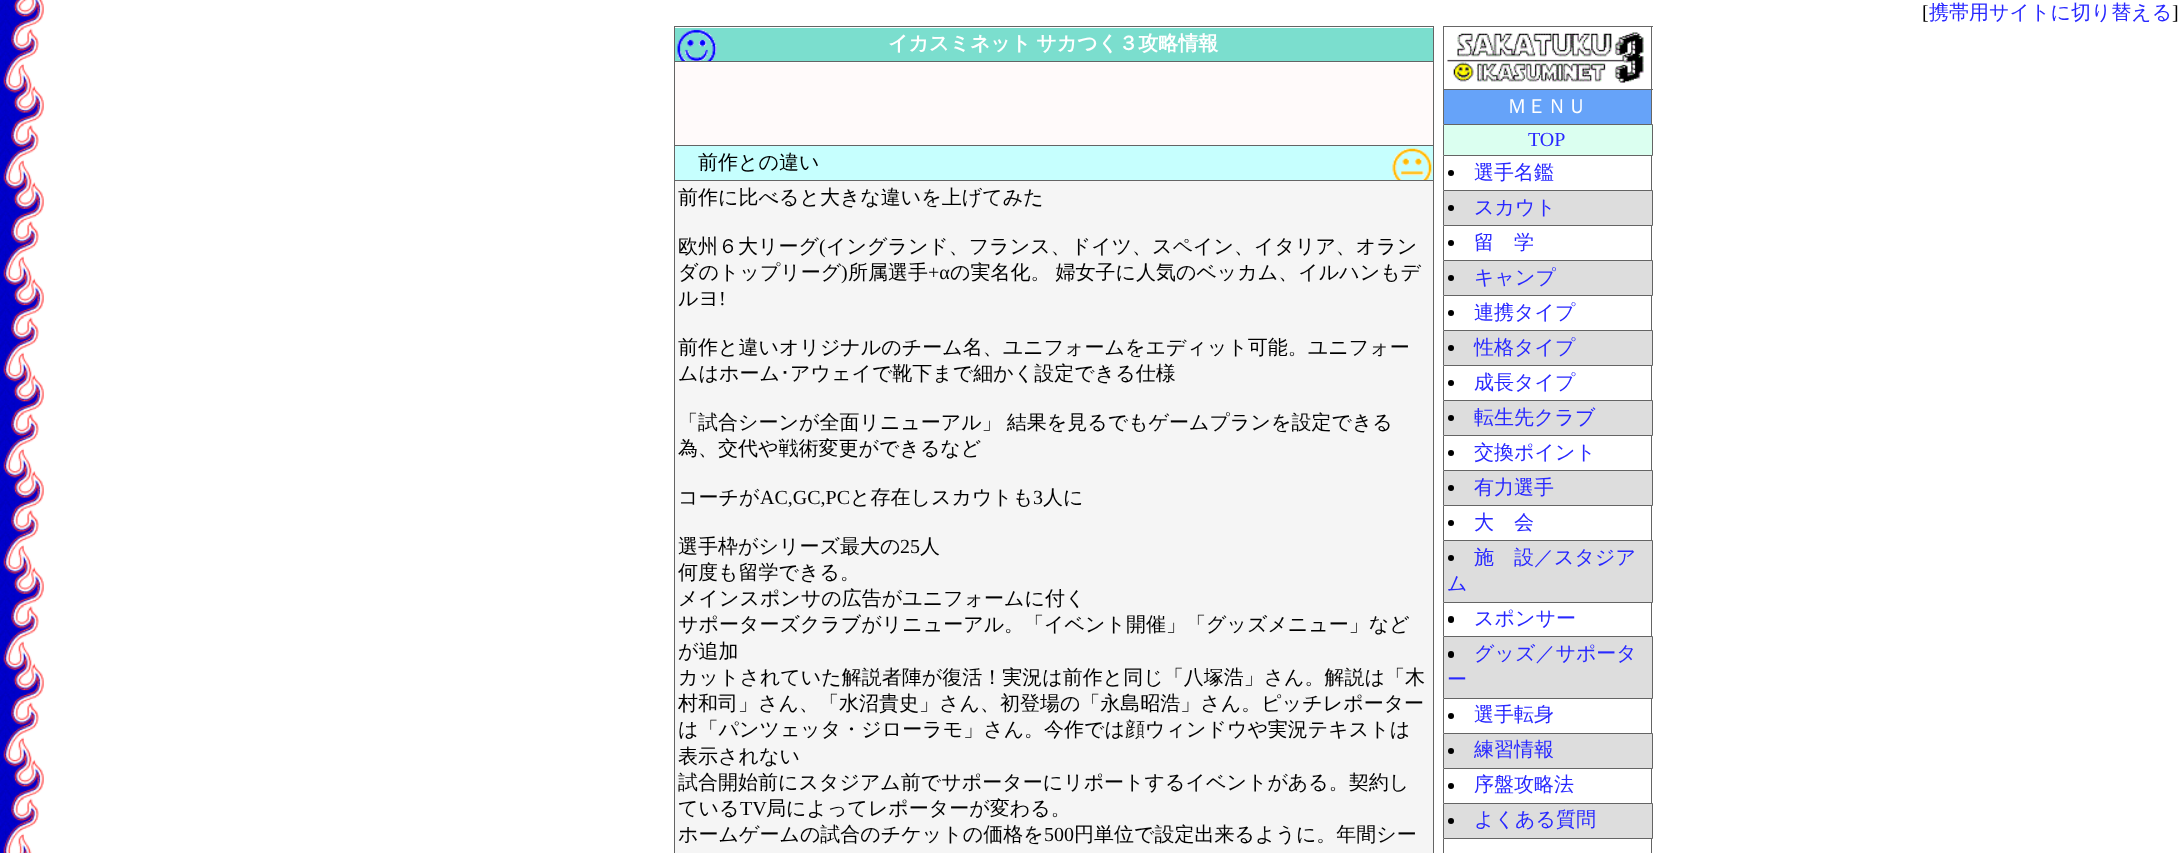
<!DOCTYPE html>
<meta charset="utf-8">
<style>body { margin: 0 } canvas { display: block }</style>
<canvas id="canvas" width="2178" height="853"></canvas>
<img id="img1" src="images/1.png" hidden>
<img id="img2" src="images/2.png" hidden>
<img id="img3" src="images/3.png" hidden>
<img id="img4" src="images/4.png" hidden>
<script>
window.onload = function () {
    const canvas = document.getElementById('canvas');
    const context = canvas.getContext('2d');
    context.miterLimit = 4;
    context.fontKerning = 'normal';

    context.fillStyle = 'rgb(255, 255, 255)';
    context.fillRect(0, 0, 2178, 853);
    context.drawImage(document.getElementById('img1'), 0, 0, 44, 853);
    context.fillStyle = 'rgb(123, 222, 206)';
    context.fillRect(675, 28, 758, 33);
    context.drawImage(document.getElementById('img2'), 677, 29, 40, 32);
    context.fillStyle = 'rgb(100, 100, 100)';
    context.fillRect(674, 26, 760, 1);
    context.fillRect(1433, 26, 1, 35);
    context.fillRect(674, 26, 1, 35);
    context.fillStyle = 'rgb(255, 250, 250)';
    context.fillRect(675, 63, 758, 82);
    context.fillStyle = 'rgb(100, 100, 100)';
    context.fillRect(674, 61, 760, 1);
    context.fillRect(1433, 61, 1, 84);
    context.fillRect(674, 61, 1, 84);
    context.fillStyle = 'rgb(198, 255, 254)';
    context.fillRect(675, 146, 758, 34);
    context.drawImage(document.getElementById('img3'), 1392, 148, 40, 32);
    context.strokeStyle = 'rgb(100, 100, 100)';
    context.strokeRect(674.5, 145.5, 759, 35);
    context.fillStyle = 'rgb(245, 245, 245)';
    context.fillRect(675, 181, 758, 672);
    context.fillStyle = 'rgb(100, 100, 100)';
    context.fillRect(1433, 181, 1, 672);
    context.fillRect(674, 181, 1, 672);
    context.fillStyle = 'rgb(102, 102, 102)';
    context.fillRect(1443, 26, 210, 1);
    context.fillRect(1651, 26, 1, 63);
    context.fillRect(1443, 26, 1, 63);
    context.drawImage(document.getElementById('img4'), 1447, 32, 197, 51);
    context.fillStyle = 'rgb(102, 163, 249)';
    context.fillRect(1444, 90, 207, 34);
    context.fillStyle = 'rgb(102, 102, 102)';
    context.fillRect(1443, 89, 210, 1);
    context.fillRect(1651, 89, 1, 35);
    context.fillRect(1443, 89, 1, 35);
    context.fillStyle = 'rgb(219, 255, 240)';
    context.beginPath();
    context.rect(1443.5, 124.5, 209, 31);
    context.fill();
    context.stroke();
    context.fillStyle = 'rgb(100, 100, 100)';
    context.fillRect(1651, 156, 1, 34);
    context.fillRect(1443, 156, 1, 34);
    context.fillStyle = 'rgb(0, 0, 0)';
    context.beginPath();
    context.arc(1451, 173, 3, 0, 2 * Math.PI);
    context.fill();
    context.fillStyle = 'rgb(221, 221, 221)';
    context.beginPath();
    context.rect(1443.5, 190.5, 209, 35);
    context.fill();
    context.stroke();
    context.fillStyle = 'rgb(0, 0, 0)';
    context.beginPath();
    context.arc(1451, 208, 3, 0, 2 * Math.PI);
    context.fill();
    context.fillStyle = 'rgb(100, 100, 100)';
    context.fillRect(1651, 226, 1, 34);
    context.fillRect(1443, 226, 1, 34);
    context.fillStyle = 'rgb(0, 0, 0)';
    context.beginPath();
    context.arc(1451, 243, 3, 0, 2 * Math.PI);
    context.fill();
    context.fillStyle = 'rgb(221, 221, 221)';
    context.beginPath();
    context.rect(1443.5, 260.5, 209, 35);
    context.fill();
    context.stroke();
    context.fillStyle = 'rgb(0, 0, 0)';
    context.beginPath();
    context.arc(1451, 278, 3, 0, 2 * Math.PI);
    context.fill();
    context.fillStyle = 'rgb(100, 100, 100)';
    context.fillRect(1651, 296, 1, 34);
    context.fillRect(1443, 296, 1, 34);
    context.fillStyle = 'rgb(0, 0, 0)';
    context.beginPath();
    context.arc(1451, 313, 3, 0, 2 * Math.PI);
    context.fill();
    context.fillStyle = 'rgb(221, 221, 221)';
    context.beginPath();
    context.rect(1443.5, 330.5, 209, 35);
    context.fill();
    context.stroke();
    context.fillStyle = 'rgb(0, 0, 0)';
    context.beginPath();
    context.arc(1451, 348, 3, 0, 2 * Math.PI);
    context.fill();
    context.fillStyle = 'rgb(100, 100, 100)';
    context.fillRect(1651, 366, 1, 34);
    context.fillRect(1443, 366, 1, 34);
    context.fillStyle = 'rgb(0, 0, 0)';
    context.beginPath();
    context.arc(1451, 383, 3, 0, 2 * Math.PI);
    context.fill();
    context.fillStyle = 'rgb(221, 221, 221)';
    context.beginPath();
    context.rect(1443.5, 400.5, 209, 35);
    context.fill();
    context.stroke();
    context.fillStyle = 'rgb(0, 0, 0)';
    context.beginPath();
    context.arc(1451, 418, 3, 0, 2 * Math.PI);
    context.fill();
    context.fillStyle = 'rgb(100, 100, 100)';
    context.fillRect(1651, 436, 1, 34);
    context.fillRect(1443, 436, 1, 34);
    context.fillStyle = 'rgb(0, 0, 0)';
    context.beginPath();
    context.arc(1451, 453, 3, 0, 2 * Math.PI);
    context.fill();
    context.fillStyle = 'rgb(221, 221, 221)';
    context.beginPath();
    context.rect(1443.5, 470.5, 209, 35);
    context.fill();
    context.stroke();
    context.fillStyle = 'rgb(0, 0, 0)';
    context.beginPath();
    context.arc(1451, 488, 3, 0, 2 * Math.PI);
    context.fill();
    context.fillStyle = 'rgb(100, 100, 100)';
    context.fillRect(1651, 506, 1, 34);
    context.fillRect(1443, 506, 1, 34);
    context.fillStyle = 'rgb(0, 0, 0)';
    context.beginPath();
    context.arc(1451, 523, 3, 0, 2 * Math.PI);
    context.fill();
    context.fillStyle = 'rgb(221, 221, 221)';
    context.beginPath();
    context.rect(1443.5, 540.5, 209, 62);
    context.fill();
    context.stroke();
    context.fillStyle = 'rgb(0, 0, 0)';
    context.beginPath();
    context.arc(1451, 558, 3, 0, 2 * Math.PI);
    context.fill();
    context.fillStyle = 'rgb(100, 100, 100)';
    context.fillRect(1651, 603, 1, 33);
    context.fillRect(1443, 603, 1, 33);
    context.fillStyle = 'rgb(0, 0, 0)';
    context.beginPath();
    context.roundRect(1448, 616, 6, 7, 3);
    context.fill();
    context.fillStyle = 'rgb(221, 221, 221)';
    context.beginPath();
    context.rect(1443.5, 636.5, 209, 62);
    context.fill();
    context.stroke();
    context.fillStyle = 'rgb(0, 0, 0)';
    context.beginPath();
    context.roundRect(1448, 651, 6, 7, 3);
    context.fill();
    context.fillStyle = 'rgb(100, 100, 100)';
    context.fillRect(1651, 699, 1, 34);
    context.fillRect(1443, 699, 1, 34);
    context.fillStyle = 'rgb(0, 0, 0)';
    context.beginPath();
    context.arc(1451, 716, 3, 0, 2 * Math.PI);
    context.fill();
    context.fillStyle = 'rgb(221, 221, 221)';
    context.beginPath();
    context.rect(1443.5, 733.5, 209, 35);
    context.fill();
    context.stroke();
    context.fillStyle = 'rgb(0, 0, 0)';
    context.beginPath();
    context.arc(1451, 751, 3, 0, 2 * Math.PI);
    context.fill();
    context.fillStyle = 'rgb(100, 100, 100)';
    context.fillRect(1651, 769, 1, 34);
    context.fillRect(1443, 769, 1, 34);
    context.fillStyle = 'rgb(0, 0, 0)';
    context.beginPath();
    context.arc(1451, 786, 3, 0, 2 * Math.PI);
    context.fill();
    context.fillStyle = 'rgb(221, 221, 221)';
    context.beginPath();
    context.rect(1443.5, 803.5, 209, 35);
    context.fill();
    context.stroke();
    context.fillStyle = 'rgb(0, 0, 0)';
    context.beginPath();
    context.arc(1451, 821, 3, 0, 2 * Math.PI);
    context.fill();
    context.fillStyle = 'rgb(100, 100, 100)';
    context.fillRect(1651, 839, 1, 14);
    context.fillRect(1443, 839, 1, 14);
    context.font = '20px Liberation Serif';
    context.fillStyle = 'rgb(0, 0, 0)';
    context.fillText('[', 1922, 19);
    context.font = '500 20px WenQuanYi Zen Hei';
    context.fillStyle = 'rgb(40, 40, 255)';
    context.fillText('携帯用サイトに切り替える', 1929, 19);
    context.font = '20px Liberation Serif';
    context.fillStyle = 'rgb(0, 0, 0)';
    context.fillText(']', 2172, 19);
    context.wordSpacing = '-1px';
    context.font = 'bold 20px WenQuanYi Zen Hei';
    context.fillStyle = 'rgb(255, 255, 255)';
    context.fillText('イカスミネット サカつく３攻略情報', 888, 50);
    context.wordSpacing = '0px';
    context.font = '500 20px WenQuanYi Zen Hei';
    context.fillStyle = 'rgb(0, 0, 0)';
    context.fillText('前作との違い', 698, 169);
    context.fillText('前作に比べると大きな違いを上げてみた', 678, 204);
    context.fillText('欧州６大リーグ', 678, 253);
    context.font = '20px Liberation Serif';
    context.fillText('(', 819, 253);
    context.font = '500 20px WenQuanYi Zen Hei';
    context.fillText('イングランド、フランス、ドイツ、スペイン、イタリア、オラン', 826, 253);
    context.fillText('ダのトップリーグ', 678, 279);
    context.font = '20px Liberation Serif';
    context.fillText(')', 841, 279);
    context.font = '500 20px WenQuanYi Zen Hei';
    context.fillText('所属選手', 848, 279);
    context.font = '20px Liberation Serif';
    context.fillText('+α', 928, 279);
    context.wordSpacing = '-1px';
    context.font = '500 20px WenQuanYi Zen Hei';
    context.fillText('の実名化。 婦女子に人気のベッカム、イルハンもデ', 950, 279);
    context.wordSpacing = '0px';
    context.fillText('ルヨ', 678, 305);
    context.font = '20px Liberation Serif';
    context.fillText('!', 719, 305);
    context.font = '500 20px WenQuanYi Zen Hei';
    context.fillText('前作と違いオリジナルのチーム名、ユニフォームをエディット可能。ユニフォー', 678, 354);
    context.fillText('ムはホーム', 678, 380);
    context.font = '20px IPAGothic';
    context.fillText('･', 780, 380);
    context.font = '500 20px WenQuanYi Zen Hei';
    context.fillText('アウェイで靴下まで細かく設定できる仕様', 790, 380);
    context.wordSpacing = '-1px';
    context.fillText('「試合シーンが全面リニューアル」 結果を見るでもゲームプランを設定できる', 678, 429);
    context.wordSpacing = '0px';
    context.fillText('為、交代や戦術変更ができるなど', 678, 455);
    context.fillText('コーチが', 678, 504);
    context.font = '20px Liberation Serif';
    context.fillText('AC,GC,PC', 760, 504);
    context.font = '500 20px WenQuanYi Zen Hei';
    context.fillText('と存在しスカウトも', 850, 504);
    context.font = '20px Liberation Serif';
    context.fillText('3', 1033, 504);
    context.font = '500 20px WenQuanYi Zen Hei';
    context.fillText('人に', 1043, 504);
    context.fillText('選手枠がシリーズ最大の', 678, 553);
    context.font = '20px Liberation Serif';
    context.fillText('25', 900, 553);
    context.font = '500 20px WenQuanYi Zen Hei';
    context.fillText('人', 920, 553);
    context.fillText('何度も留学できる。', 678, 579);
    context.fillText('メインスポンサの広告がユニフォームに付く', 678, 605);
    context.fillText('サポーターズクラブがリニューアル。「イベント開催」「グッズメニュー」など', 678, 631);
    context.fillText('が追加', 678, 658);
    context.fillText('カットされていた解説者陣が復活！実況は前作と同じ「八塚浩」さん。解説は「木', 678, 684);
    context.fillText('村和司」さん、「水沼貴史」さん、初登場の「永島昭浩」さん。ピッチレポーター', 678, 710);
    context.fillText('は「パンツェッタ・ジローラモ」さん。今作では顔ウィンドウや実況テキストは', 678, 736);
    context.fillText('表示されない', 678, 763);
    context.fillText('試合開始前にスタジアム前でサポーターにリポートするイベントがある。契約し', 678, 789);
    context.fillText('ている', 678, 815);
    context.font = '20px Liberation Serif';
    context.fillText('TV', 740, 815);
    context.font = '500 20px WenQuanYi Zen Hei';
    context.fillText('局によってレポーターが変わる。', 766, 815);
    context.fillText('ホームゲームの試合のチケットの価格を', 678, 841);
    context.font = '20px Liberation Serif';
    context.fillText('500', 1044, 841);
    context.font = '500 20px WenQuanYi Zen Hei';
    context.fillText('円単位で設定出来るように。年間シー', 1074, 841);
    context.fillStyle = 'rgb(255, 255, 255)';
    context.fillText('ＭＥＮＵ', 1507, 113);
    context.font = '20px Liberation Serif';
    context.fillStyle = 'rgb(40, 40, 255)';
    context.fillText('TOP', 1528, 146);
    context.font = '500 20px WenQuanYi Zen Hei';
    context.fillText('選手名鑑', 1474, 179);
    context.fillText('スカウト', 1474, 214);
    context.fillText('留　学', 1474, 249);
    context.fillText('キャンプ', 1474, 284);
    context.fillText('連携タイプ', 1474, 319);
    context.fillText('性格タイプ', 1474, 354);
    context.fillText('成長タイプ', 1474, 389);
    context.fillText('転生先クラブ', 1474, 424);
    context.fillText('交換ポイント', 1474, 459);
    context.fillText('有力選手', 1474, 494);
    context.fillText('大　会', 1474, 529);
    context.fillText('施　設／スタジア', 1474, 564);
    context.fillText('ム', 1447, 590);
    context.fillText('スポンサー', 1474, 625);
    context.fillText('グッズ／サポータ', 1474, 660);
    context.fillText('ー', 1447, 686);
    context.fillText('選手転身', 1474, 721);
    context.fillText('練習情報', 1474, 756);
    context.fillText('序盤攻略法', 1474, 791);
    context.fillText('よくある質問', 1474, 826);
};
</script>
